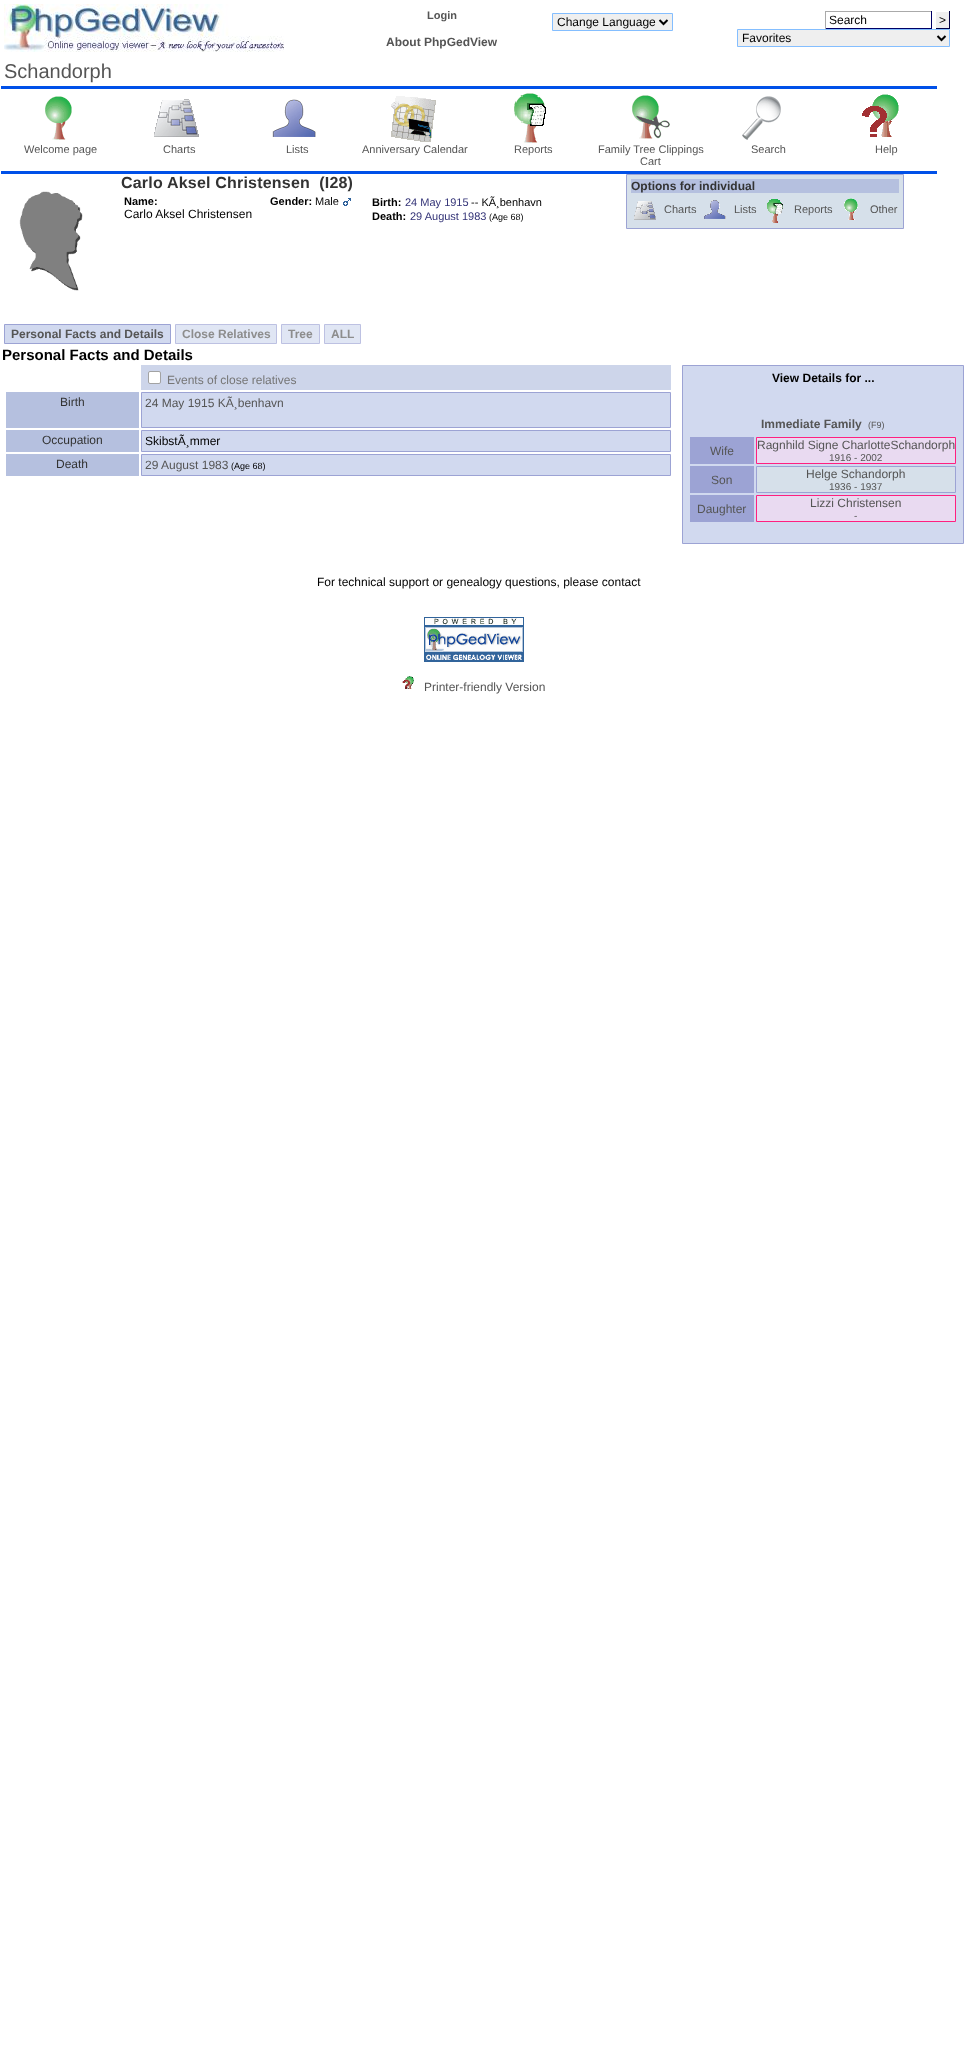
<!DOCTYPE html>
<meta charset="utf-8">
<style>body { margin: 0 } canvas { display: block }</style>
<canvas id="canvas" width="967" height="2068"></canvas>
<img id="img1" src="images/1.png" hidden>
<img id="img2" src="images/2.png" hidden>
<img id="img3" src="images/3.png" hidden>
<img id="img4" src="images/4.png" hidden>
<img id="img5" src="images/5.png" hidden>
<img id="img6" src="images/6.png" hidden>
<img id="img7" src="images/7.png" hidden>
<img id="img8" src="images/8.png" hidden>
<img id="img9" src="images/9.png" hidden>
<img id="img10" src="images/10.png" hidden>
<img id="img11" src="images/11.png" hidden>
<img id="img12" src="images/12.png" hidden>
<img id="img13" src="images/13.png" hidden>
<img id="img14" src="images/14.png" hidden>
<img id="img15" src="images/15.png" hidden>
<img id="img16" src="images/16.png" hidden>
<img id="img17" src="images/17.png" hidden>
<script>
window.onload = function () {
    const canvas = document.getElementById('canvas');
    const context = canvas.getContext('2d');
    context.miterLimit = 4;
    context.fontKerning = 'normal';

    context.fillStyle = 'rgb(255, 255, 255)';
    context.fillRect(0, 0, 967, 2068);
    context.drawImage(document.getElementById('img1'), 4, 4, 280, 48);
    context.fillStyle = 'rgb(239, 239, 239)';
    context.beginPath();
    context.rect(552.5, 13.5, 120, 17);
    context.fill();
    context.strokeStyle = 'rgb(132, 190, 255)';
    context.stroke();
    context.beginPath();
    context.moveTo(659.5, 20);
    context.lineTo(663.5, 24);
    context.lineTo(667.5, 20);
    context.strokeStyle = 'rgb(0, 0, 0)';
    context.lineWidth = 2;
    context.stroke();
    context.fillStyle = 'rgb(170, 170, 170)';
    context.fillRect(825, 11, 107, 1);
    context.fillStyle = 'rgb(0, 0, 102)';
    context.fillRect(931, 11, 1, 18);
    context.fillRect(825, 28, 107, 1);
    context.fillStyle = 'rgb(170, 170, 170)';
    context.fillRect(825, 11, 1, 18);
    context.fillStyle = 'rgb(239, 239, 239)';
    context.fillRect(936, 12, 13, 16);
    context.fillStyle = 'rgb(0, 0, 68)';
    context.fillRect(949, 11, 1, 18);
    context.fillRect(935, 28, 15, 1);
    context.fillStyle = 'rgb(255, 255, 255)';
    context.fillRect(935, 28, 1, 1);
    context.fillStyle = 'rgb(239, 239, 239)';
    context.beginPath();
    context.rect(737.5, 29.5, 212, 17);
    context.fill();
    context.strokeStyle = 'rgb(132, 190, 255)';
    context.lineWidth = 1;
    context.stroke();
    context.beginPath();
    context.moveTo(937.5, 36);
    context.lineTo(941.5, 40);
    context.lineTo(945.5, 36);
    context.strokeStyle = 'rgb(0, 0, 0)';
    context.lineWidth = 2;
    context.stroke();
    context.fillStyle = 'rgb(0, 80, 232)';
    context.fillRect(1, 86, 936, 3);
    context.drawImage(document.getElementById('img2'), 45, 96, 27, 44);
    context.drawImage(document.getElementById('img3'), 154, 99, 45, 38);
    context.drawImage(document.getElementById('img4'), 272, 99, 44, 38);
    context.drawImage(document.getElementById('img5'), 391, 96, 45, 46);
    context.drawImage(document.getElementById('img6'), 514, 93, 32, 50);
    context.drawImage(document.getElementById('img7'), 632, 95, 38, 44);
    context.drawImage(document.getElementById('img8'), 742, 96, 39, 44);
    context.drawImage(document.getElementById('img9'), 862, 94, 37, 43);
    context.fillRect(1, 171, 936, 3);
    context.drawImage(document.getElementById('img10'), 19, 191, 64, 100);
    context.drawImage(document.getElementById('img11'), 343, 198, 8, 8);
    context.fillStyle = 'rgb(214, 224, 234)';
    context.beginPath();
    context.rect(626.5, 174.5, 277, 54);
    context.fill();
    context.strokeStyle = 'rgb(156, 163, 212)';
    context.lineWidth = 1;
    context.stroke();
    context.fillStyle = 'rgb(181, 192, 223)';
    context.fillRect(631, 179, 268, 14);
    context.drawImage(document.getElementById('img12'), 634, 201, 22, 19);
    context.drawImage(document.getElementById('img13'), 704, 200, 22, 19);
    context.drawImage(document.getElementById('img14'), 767, 199, 16, 24);
    context.drawImage(document.getElementById('img15'), 844, 198, 14, 22);
    context.fillStyle = 'rgb(209, 217, 239)';
    context.beginPath();
    context.rect(4.5, 324.5, 166, 19);
    context.fill();
    context.stroke();
    context.fillStyle = 'rgb(224, 230, 244)';
    context.beginPath();
    context.rect(175.5, 324.5, 101, 19);
    context.fill();
    context.strokeStyle = 'rgb(189, 193, 226)';
    context.stroke();
    context.beginPath();
    context.rect(281.5, 324.5, 38, 19);
    context.fill();
    context.stroke();
    context.beginPath();
    context.rect(324.5, 324.5, 36, 19);
    context.fill();
    context.stroke();
    context.fillStyle = 'rgb(205, 213, 234)';
    context.fillRect(141, 365, 530, 25);
    context.fillStyle = 'rgb(255, 255, 255)';
    context.beginPath();
    context.roundRect(148.5, 371.5, 12, 12, 1.5);
    context.fill();
    context.strokeStyle = 'rgb(163, 163, 163)';
    context.stroke();
    context.fillStyle = 'rgb(181, 192, 223)';
    context.fillRect(6, 392, 133, 36);
    context.fillStyle = 'rgb(209, 217, 239)';
    context.beginPath();
    context.rect(141.5, 392.5, 529, 35);
    context.fill();
    context.strokeStyle = 'rgb(156, 163, 212)';
    context.stroke();
    context.fillStyle = 'rgb(181, 192, 223)';
    context.fillRect(6, 430, 133, 22);
    context.fillStyle = 'rgb(209, 217, 239)';
    context.beginPath();
    context.rect(141.5, 430.5, 529, 21);
    context.fill();
    context.stroke();
    context.fillStyle = 'rgb(181, 192, 223)';
    context.fillRect(6, 454, 133, 22);
    context.fillStyle = 'rgb(209, 217, 239)';
    context.beginPath();
    context.rect(141.5, 454.5, 529, 21);
    context.fill();
    context.stroke();
    context.beginPath();
    context.rect(682.5, 365.5, 281, 178);
    context.fill();
    context.stroke();
    context.fillStyle = 'rgb(156, 163, 212)';
    context.fillRect(690, 437, 64, 27);
    context.fillStyle = 'rgb(233, 218, 241)';
    context.beginPath();
    context.rect(756.5, 437.5, 199, 26);
    context.fill();
    context.strokeStyle = 'rgb(255, 32, 128)';
    context.stroke();
    context.fillStyle = 'rgb(156, 163, 212)';
    context.fillRect(690, 466, 64, 27);
    context.fillStyle = 'rgb(214, 224, 234)';
    context.beginPath();
    context.rect(756.5, 466.5, 199, 26);
    context.fill();
    context.strokeStyle = 'rgb(156, 163, 212)';
    context.stroke();
    context.fillStyle = 'rgb(156, 163, 212)';
    context.fillRect(690, 495, 64, 27);
    context.fillStyle = 'rgb(233, 218, 241)';
    context.beginPath();
    context.rect(756.5, 495.5, 199, 26);
    context.fill();
    context.strokeStyle = 'rgb(255, 32, 128)';
    context.stroke();
    context.drawImage(document.getElementById('img16'), 424, 617, 100, 45);
    context.drawImage(document.getElementById('img17'), 402, 676, 12, 13);
    context.font = 'bold 11px Liberation Sans';
    context.fillStyle = 'rgb(85, 85, 85)';
    context.fillText('Login', 427, 19);
    context.font = 'bold 12px Liberation Sans';
    context.fillText('About PhpGedView', 386, 46);
    context.font = '12px Liberation Sans';
    context.fillStyle = 'rgb(0, 0, 0)';
    context.fillText('Change Language', 557, 26);
    context.fillText('Search', 829, 24);
    context.fillText('>', 939, 24);
    context.fillText('Favorites', 742, 42);
    context.font = '20px Liberation Sans';
    context.fillStyle = 'rgb(85, 85, 85)';
    context.fillText('Schandorph', 4, 78);
    context.font = '11px Liberation Sans';
    context.fillText('Welcome page', 24, 153);
    context.fillText('Charts', 163, 153);
    context.fillText('Lists', 286, 153);
    context.fillText('Anniversary Calendar', 362, 153);
    context.fillText('Reports', 514, 153);
    context.fillText('Family Tree Clippings', 598, 153);
    context.fillText('Cart', 640, 165);
    context.fillText('Search', 751, 153);
    context.fillText('Help', 875, 153);
    context.letterSpacing = '0.2px';
    context.font = 'bold 16px Liberation Sans';
    context.fillStyle = 'rgb(51, 51, 51)';
    context.fillText('Carlo Aksel Christensen  (I28)', 121, 188);
    context.letterSpacing = '0px';
    context.font = 'bold 11px Liberation Sans';
    context.fillStyle = 'rgb(0, 0, 0)';
    context.fillText('Name:', 124, 205);
    context.font = '12px Liberation Sans';
    context.fillText('Carlo Aksel Christensen', 124, 218);
    context.font = 'bold 11px Liberation Sans';
    context.fillText('Gender:', 270, 205);
    context.font = '11px Liberation Sans';
    context.fillText('Male', 315, 205);
    context.font = 'bold 11px Liberation Sans';
    context.fillText('Birth:', 372, 206);
    context.font = '11px Liberation Sans';
    context.fillStyle = 'rgb(51, 51, 119)';
    context.fillText('24 May 1915', 405, 206);
    context.fillStyle = 'rgb(0, 0, 0)';
    context.fillText('-- KÃ¸benhavn', 471, 206);
    context.font = 'bold 11px Liberation Sans';
    context.fillText('Death:', 372, 220);
    context.font = '11px Liberation Sans';
    context.fillStyle = 'rgb(51, 51, 119)';
    context.fillText('29 August 1983', 410, 220);
    context.font = '9px Liberation Sans';
    context.fillStyle = 'rgb(0, 0, 0)';
    context.fillText('(Age 68)', 489, 220);
    context.font = 'bold 12px Liberation Sans';
    context.fillStyle = 'rgb(51, 51, 51)';
    context.fillText('Options for individual', 631, 190);
    context.font = '11px Liberation Sans';
    context.fillStyle = 'rgb(85, 85, 85)';
    context.fillText('Charts', 664, 213);
    context.fillText('Lists', 734, 213);
    context.fillText('Reports', 794, 213);
    context.fillText('Other', 870, 213);
    context.font = 'bold 12px Liberation Sans';
    context.fillText('Personal Facts and Details', 11, 338);
    context.fillStyle = 'rgb(141, 141, 141)';
    context.fillText('Close Relatives', 182, 338);
    context.fillText('Tree', 288, 338);
    context.fillText('ALL', 331, 338);
    context.font = 'bold 15px Liberation Sans';
    context.fillStyle = 'rgb(0, 0, 0)';
    context.fillText('Personal Facts and Details', 2, 360);
    context.font = '12px Liberation Sans';
    context.fillStyle = 'rgb(118, 118, 118)';
    context.fillText('Events of close relatives', 167, 384);
    context.fillStyle = 'rgb(51, 51, 51)';
    context.fillText('Birth', 60, 406);
    context.fillStyle = 'rgb(85, 85, 85)';
    context.fillText('24 May 1915 KÃ¸benhavn', 145, 407);
    context.fillStyle = 'rgb(51, 51, 51)';
    context.fillText('Occupation', 42, 444);
    context.fillStyle = 'rgb(0, 0, 0)';
    context.fillText('SkibstÃ¸mmer', 145, 445);
    context.fillStyle = 'rgb(51, 51, 51)';
    context.fillText('Death', 56, 468);
    context.fillStyle = 'rgb(85, 85, 85)';
    context.fillText('29 August 1983', 145, 469);
    context.font = '9px Liberation Sans';
    context.fillStyle = 'rgb(0, 0, 0)';
    context.fillText('(Age 68)', 231, 469);
    context.font = 'bold 12px Liberation Sans';
    context.fillText('View Details for ...', 772, 382);
    context.fillStyle = 'rgb(85, 85, 85)';
    context.fillText('Immediate Family', 761, 428);
    context.font = '9px Liberation Sans';
    context.fillText('(F9)', 868, 428);
    context.font = '12px Liberation Sans';
    context.fillText('Wife', 710, 455);
    context.fillText('Ragnhild Signe CharlotteSchandorph', 757, 449);
    context.font = '10px Liberation Sans';
    context.fillText('1916 - 2002', 829, 461);
    context.font = '12px Liberation Sans';
    context.fillText('Son', 711, 484);
    context.fillText('Helge Schandorph', 806, 478);
    context.font = '10px Liberation Sans';
    context.fillText('1936 - 1937', 829, 490);
    context.font = '12px Liberation Sans';
    context.fillText('Daughter', 697, 513);
    context.fillText('Lizzi Christensen', 810, 507);
    context.font = '10px Liberation Sans';
    context.fillText('-', 854, 519);
    context.font = '12px Liberation Sans';
    context.fillStyle = 'rgb(0, 0, 0)';
    context.fillText('For technical support or genealogy questions, please contact', 317, 586);
    context.fillStyle = 'rgb(85, 85, 85)';
    context.fillText('Printer-friendly Version', 424, 691);
};
</script>
